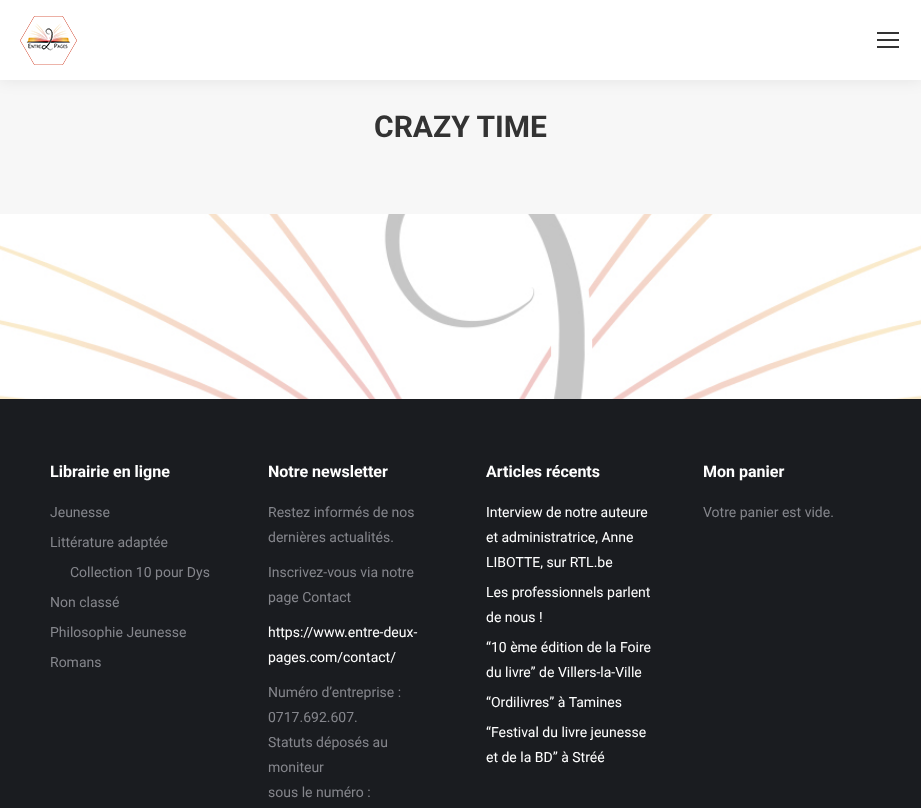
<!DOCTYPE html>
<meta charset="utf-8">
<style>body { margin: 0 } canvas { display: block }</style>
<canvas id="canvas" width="921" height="808"></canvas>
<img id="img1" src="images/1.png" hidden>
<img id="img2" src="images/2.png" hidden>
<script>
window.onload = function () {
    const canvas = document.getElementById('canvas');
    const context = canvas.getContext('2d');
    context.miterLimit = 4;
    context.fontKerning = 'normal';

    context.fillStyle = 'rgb(255, 255, 255)';
    context.fillRect(0, 0, 921, 808);
    context.fillStyle = 'rgb(247, 247, 247)';
    context.fillRect(0, 80, 921, 134);
    context.fillStyle = 'rgba(0, 0, 0, 0.07)';
    context.filter = 'blur(7.5px)';
    context.beginPath();
    context.rect(-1, -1, 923, 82);
    context.fill();
    context.filter = 'none';
    context.fillStyle = 'rgb(255, 255, 255)';
    context.fillRect(0, 0, 921, 80);
    context.drawImage(document.getElementById('img1'), 20, 16, 57, 49);
    context.fillStyle = 'rgb(51, 51, 51)';
    context.fillRect(877, 32, 22, 2);
    context.fillRect(877, 39, 22, 2);
    context.fillRect(877, 46, 22, 2);
    context.drawImage(document.getElementById('img2'), 0, 214, 921, 185);
    context.fillStyle = 'rgb(26, 28, 32)';
    context.fillRect(0, 399, 921, 409);
    context.font = 'bold 30px Roboto';
    context.fillStyle = 'rgb(51, 51, 51)';
    context.fillText('CRAZY TIME', 374, 137);
    context.font = 'bold 16px Roboto';
    context.fillStyle = 'rgb(255, 255, 255)';
    context.fillText('Librairie en ligne', 50, 477);
    context.font = '14px Roboto';
    context.fillStyle = 'rgb(133, 134, 140)';
    context.fillText('Jeunesse', 50, 517);
    context.fillText('Littérature adaptée', 50, 547);
    context.fillText('Collection 10 pour Dys', 70, 577);
    context.fillText('Non classé', 50, 607);
    context.fillText('Philosophie Jeunesse', 50, 637);
    context.fillText('Romans', 50, 667);
    context.font = 'bold 16px Roboto';
    context.fillStyle = 'rgb(255, 255, 255)';
    context.fillText('Notre newsletter', 268, 477);
    context.font = '14px Roboto';
    context.fillStyle = 'rgb(133, 134, 140)';
    context.fillText('Restez informés de nos', 268, 517);
    context.fillText('dernières actualités.', 268, 542);
    context.fillText('Inscrivez-vous via notre', 268, 577);
    context.fillText('page Contact', 268, 602);
    context.fillStyle = 'rgb(255, 255, 255)';
    context.fillText('https://www.entre-deux-', 268, 637);
    context.fillText('pages.com/contact/', 268, 662);
    context.fillStyle = 'rgb(133, 134, 140)';
    context.fillText('Numéro d’entreprise :', 268, 697);
    context.fillText('0717.692.607.', 268, 722);
    context.fillText('Statuts déposés au', 268, 747);
    context.fillText('moniteur', 268, 772);
    context.fillText('sous le numéro :', 268, 797);
    context.font = 'bold 16px Roboto';
    context.fillStyle = 'rgb(255, 255, 255)';
    context.fillText('Articles récents', 486, 477);
    context.font = '14px Roboto';
    context.fillText('Interview de notre auteure', 486, 517);
    context.fillText('et administratrice, Anne', 486, 542);
    context.fillText('LIBOTTE, sur RTL.be', 486, 567);
    context.fillText('Les professionnels parlent', 486, 597);
    context.fillText('de nous !', 486, 622);
    context.fillText('“10 ème édition de la Foire', 486, 652);
    context.fillText('du livre” de Villers-la-Ville', 486, 677);
    context.fillText('“Ordilivres” à Tamines', 486, 707);
    context.fillText('“Festival du livre jeunesse', 486, 737);
    context.fillText('et de la BD” à Stréé', 486, 762);
    context.font = 'bold 16px Roboto';
    context.fillText('Mon panier', 703, 477);
    context.font = '14px Roboto';
    context.fillStyle = 'rgb(133, 134, 140)';
    context.fillText('Votre panier est vide.', 703, 517);
};
</script>
